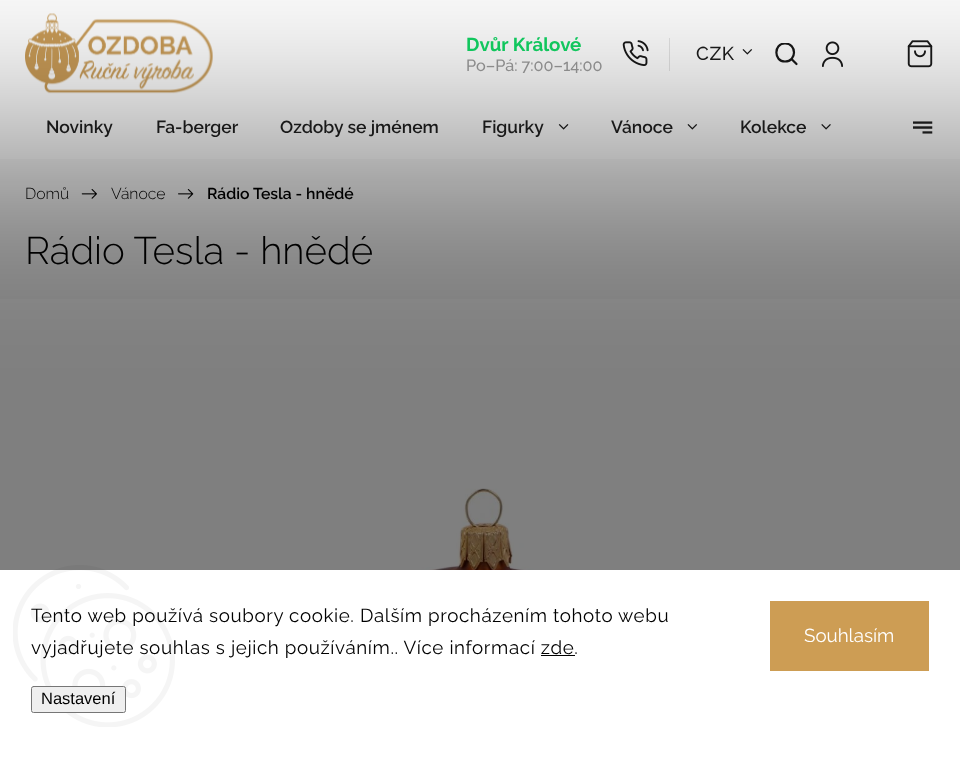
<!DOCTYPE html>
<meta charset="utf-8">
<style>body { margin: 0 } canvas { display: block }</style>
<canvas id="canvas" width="960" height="764"></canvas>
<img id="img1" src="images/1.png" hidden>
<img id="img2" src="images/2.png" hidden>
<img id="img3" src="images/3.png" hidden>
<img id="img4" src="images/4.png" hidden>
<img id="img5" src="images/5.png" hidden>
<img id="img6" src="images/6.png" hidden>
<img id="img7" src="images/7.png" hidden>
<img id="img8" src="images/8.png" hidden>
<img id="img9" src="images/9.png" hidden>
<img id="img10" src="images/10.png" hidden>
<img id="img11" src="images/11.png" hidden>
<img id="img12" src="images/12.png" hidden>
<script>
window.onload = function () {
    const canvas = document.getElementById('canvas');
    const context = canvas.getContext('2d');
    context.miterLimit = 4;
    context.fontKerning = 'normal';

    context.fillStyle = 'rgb(255, 255, 255)';
    context.fillRect(0, 0, 960, 764);
    context.drawImage(document.getElementById('img1'), 25, 13, 188, 81);
    context.drawImage(document.getElementById('img2'), 622, 40, 27, 26);
    context.fillStyle = 'rgb(229, 229, 229)';
    context.fillRect(669, 38, 1, 33);
    context.drawImage(document.getElementById('img3'), 742, 49, 11, 6);
    context.save();
    context.beginPath();
    context.rect(775, 43, 23, 22);
    context.clip();
    context.beginPath();
    context.moveTo(785, 61.5);
    context.bezierCurveTo(797, 61.5, 797, 43.5, 785, 43.5);
    context.bezierCurveTo(773.5, 43.5, 773.5, 61.5, 785, 61.5);
    context.closePath();
    context.strokeStyle = 'rgb(25, 25, 25)';
    context.lineWidth = 2.2;
    context.lineCap = 'round';
    context.lineJoin = 'round';
    context.stroke();
    context.restore();
    context.beginPath();
    context.moveTo(796.5, 64);
    context.lineTo(792, 59.5);
    context.strokeStyle = 'rgb(25, 25, 25)';
    context.lineWidth = 2.2;
    context.lineCap = 'round';
    context.lineJoin = 'round';
    context.stroke();
    context.drawImage(document.getElementById('img4'), 822, 41, 21, 26);
    context.drawImage(document.getElementById('img5'), 907, 40, 26, 28);
    context.drawImage(document.getElementById('img6'), 558, 124, 11, 6);
    context.drawImage(document.getElementById('img3'), 687, 124, 11, 6);
    context.drawImage(document.getElementById('img7'), 821, 124, 10, 6);
    context.drawImage(document.getElementById('img8'), 913, 121, 20, 13);
    context.fillStyle = 'rgb(250, 250, 250)';
    context.fillRect(0, 159, 960, 140);
    context.drawImage(document.getElementById('img9'), 81, 189, 16, 10);
    context.drawImage(document.getElementById('img10'), 178, 189, 16, 10);
    context.drawImage(document.getElementById('img11'), 353, 488, 259, 82);
    context.fillStyle = 'rgba(0, 0, 0, 0.5)';
    context.filter = 'blur(100px)';
    context.beginPath();
    context.rect(-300, 140, 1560, 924);
    context.fill();
    context.filter = 'none';
    context.fillStyle = 'rgb(255, 255, 255)';
    context.fillRect(0, 570, 960, 194);
    context.drawImage(document.getElementById('img12'), 13, 565, 162, 162);
    context.fillStyle = 'rgb(0, 0, 0)';
    context.fillRect(541, 655, 34, 1);
    context.fillStyle = 'rgb(239, 239, 239)';
    context.beginPath();
    context.roundRect(31.5, 686.5, 94, 26, 2);
    context.fill();
    context.strokeStyle = 'rgb(118, 118, 118)';
    context.lineWidth = 1;
    context.lineJoin = 'miter';
    context.stroke();
    context.fillStyle = 'rgb(205, 157, 84)';
    context.fillRect(770, 601, 159, 70);
    context.font = 'bold 18.75px Raleway';
    context.fillStyle = 'rgb(17, 198, 93)';
    context.fillText('Dvůr Králové', 466, 51);
    context.font = '500 16.25px Raleway';
    context.fillStyle = 'rgb(139, 139, 139)';
    context.fillText('Po–Pá: 7:00–14:00', 466, 71);
    context.letterSpacing = '0.62px';
    context.font = '500 18.75px Raleway';
    context.fillStyle = 'rgb(25, 25, 25)';
    context.fillText('CZK', 696, 60);
    context.letterSpacing = '0px';
    context.font = '600 17.5px Raleway';
    context.fillText('Novinky', 46, 133);
    context.fillText('Fa-berger', 156, 133);
    context.fillText('Ozdoby se jménem', 280, 133);
    context.fillText('Figurky', 482, 133);
    context.fillText('Vánoce', 611, 133);
    context.fillText('Kolekce', 740, 133);
    context.font = '300 15.75px Raleway';
    context.fillStyle = 'rgb(0, 0, 0)';
    context.fillText('Domů', 25, 199);
    context.fillText('Vánoce', 111, 199);
    context.font = '600 15.75px Raleway';
    context.fillText('Rádio Tesla - hnědé', 207, 199);
    context.font = '300 38.5px Raleway';
    context.fillText('Rádio Tesla - hnědé', 25, 264);
    context.letterSpacing = '0.62px';
    context.font = '18.75px Raleway';
    context.fillText('Tento web používá soubory cookie. Dalším procházením tohoto webu', 31, 622);
    context.fillText('vyjadřujete souhlas s jejich používáním.. Více informací zde.', 31, 654);
    context.letterSpacing = '0px';
    context.font = '16.5px Liberation Sans';
    context.fillText('Nastavení', 41, 704);
    context.font = '18.75px Raleway';
    context.fillStyle = 'rgb(255, 255, 255)';
    context.fillText('Souhlasím', 804, 642);
};
</script>
